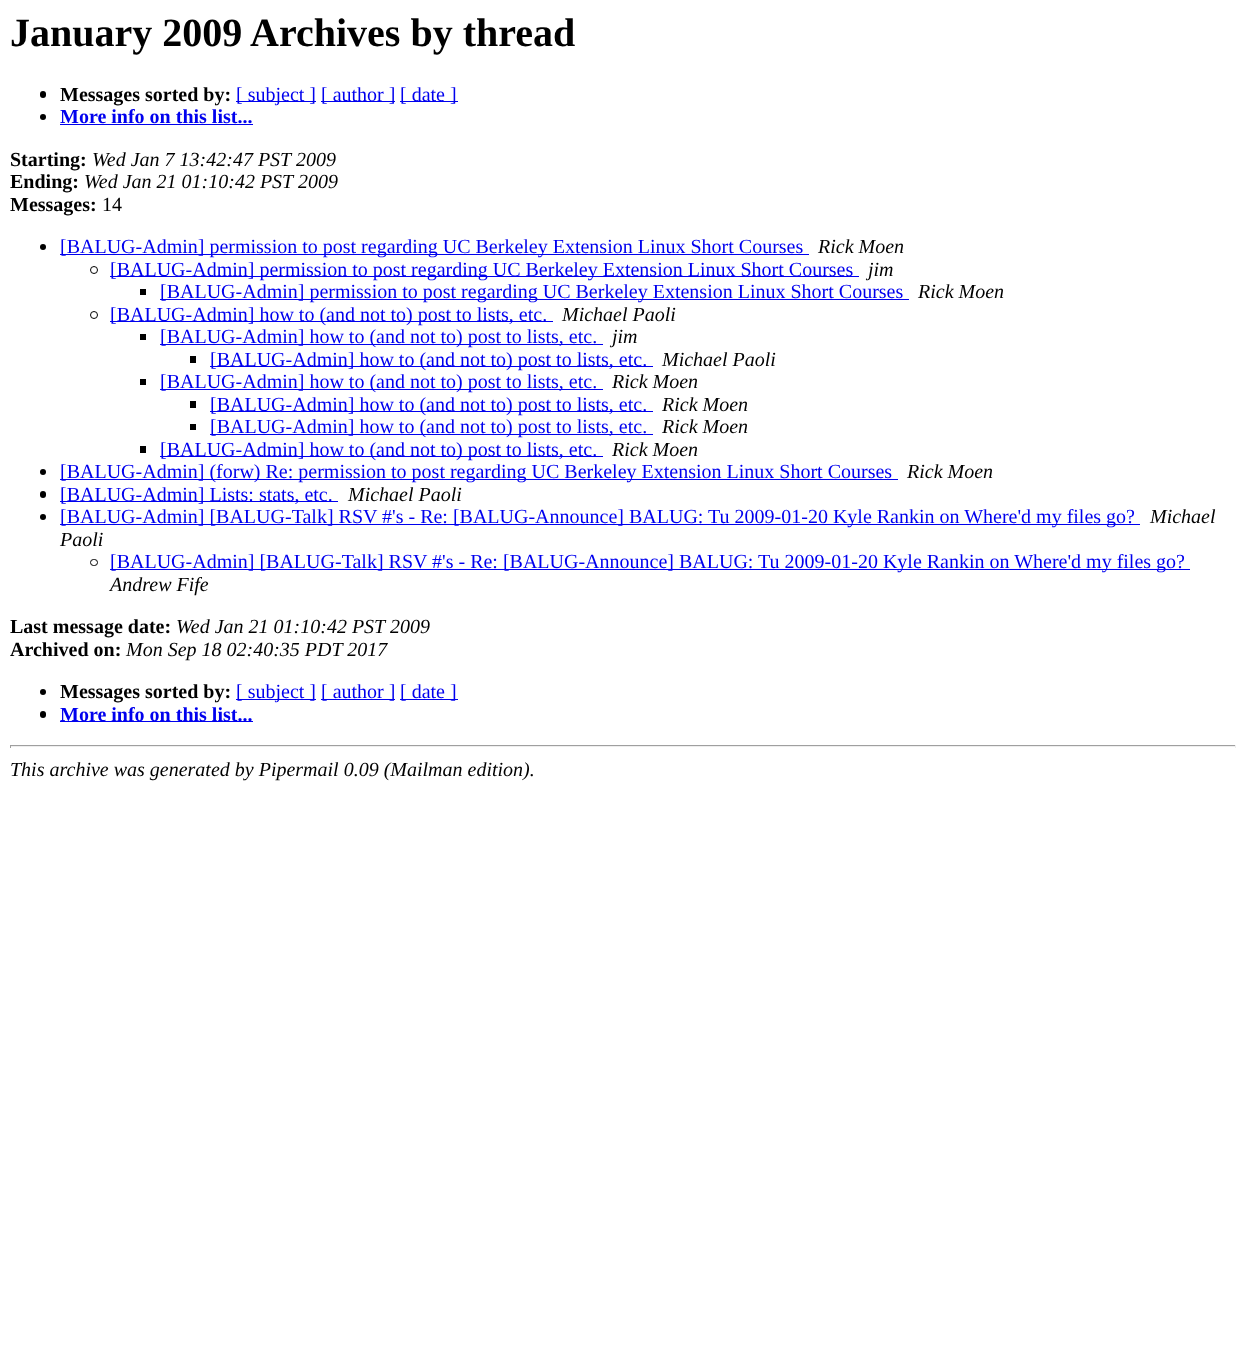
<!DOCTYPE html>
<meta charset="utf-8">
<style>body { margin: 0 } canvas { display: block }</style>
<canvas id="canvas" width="1246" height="1365"></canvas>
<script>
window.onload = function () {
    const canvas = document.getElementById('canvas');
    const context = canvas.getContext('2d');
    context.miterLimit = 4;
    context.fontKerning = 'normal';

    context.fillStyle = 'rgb(255, 255, 255)';
    context.fillRect(0, 0, 1246, 1365);
    context.fillStyle = 'rgb(0, 0, 0)';
    context.beginPath();
    context.roundRect(40, 91, 6, 7, 3);
    context.fill();
    context.fillStyle = 'rgb(0, 0, 238)';
    context.fillRect(236, 101, 80, 1);
    context.fillRect(321, 101, 74, 1);
    context.fillRect(400, 101, 58, 1);
    context.fillStyle = 'rgb(0, 0, 0)';
    context.beginPath();
    context.arc(43, 117, 3, 0, 2 * Math.PI);
    context.fill();
    context.fillStyle = 'rgb(0, 0, 238)';
    context.fillRect(60, 124, 193, 1);
    context.fillStyle = 'rgb(0, 0, 0)';
    context.beginPath();
    context.arc(43, 247, 3, 0, 2 * Math.PI);
    context.fill();
    context.fillStyle = 'rgb(0, 0, 238)';
    context.fillRect(60, 254, 749, 1);
    context.beginPath();
    context.arc(94, 270, 3.5, 0, 2 * Math.PI);
    context.strokeStyle = 'rgb(0, 0, 0)';
    context.stroke();
    context.fillRect(110, 276, 749, 1);
    context.fillStyle = 'rgb(0, 0, 0)';
    context.fillRect(140, 289, 6, 6);
    context.fillStyle = 'rgb(0, 0, 238)';
    context.fillRect(160, 299, 749, 1);
    context.beginPath();
    context.arc(94, 315, 3.5, 0, 2 * Math.PI);
    context.stroke();
    context.fillRect(110, 321, 443, 1);
    context.fillStyle = 'rgb(0, 0, 0)';
    context.fillRect(140, 334, 6, 6);
    context.fillStyle = 'rgb(0, 0, 238)';
    context.fillRect(160, 344, 443, 1);
    context.fillStyle = 'rgb(0, 0, 0)';
    context.fillRect(190, 356, 6, 7);
    context.fillStyle = 'rgb(0, 0, 238)';
    context.fillRect(210, 366, 443, 1);
    context.fillStyle = 'rgb(0, 0, 0)';
    context.fillRect(140, 379, 6, 6);
    context.fillStyle = 'rgb(0, 0, 238)';
    context.fillRect(160, 389, 443, 1);
    context.fillStyle = 'rgb(0, 0, 0)';
    context.fillRect(190, 401, 6, 7);
    context.fillStyle = 'rgb(0, 0, 238)';
    context.fillRect(210, 411, 443, 1);
    context.fillStyle = 'rgb(0, 0, 0)';
    context.fillRect(190, 424, 6, 6);
    context.fillStyle = 'rgb(0, 0, 238)';
    context.fillRect(210, 434, 443, 1);
    context.fillStyle = 'rgb(0, 0, 0)';
    context.fillRect(140, 446, 6, 7);
    context.fillStyle = 'rgb(0, 0, 238)';
    context.fillRect(160, 456, 443, 1);
    context.fillStyle = 'rgb(0, 0, 0)';
    context.beginPath();
    context.arc(43, 472, 3, 0, 2 * Math.PI);
    context.fill();
    context.fillStyle = 'rgb(0, 0, 238)';
    context.fillRect(60, 479, 838, 1);
    context.fillStyle = 'rgb(0, 0, 0)';
    context.beginPath();
    context.roundRect(40, 491, 6, 7, 3);
    context.fill();
    context.fillStyle = 'rgb(0, 0, 238)';
    context.fillRect(60, 501, 278, 1);
    context.fillStyle = 'rgb(0, 0, 0)';
    context.beginPath();
    context.arc(43, 517, 3, 0, 2 * Math.PI);
    context.fill();
    context.fillStyle = 'rgb(0, 0, 238)';
    context.fillRect(60, 524, 1080, 1);
    context.beginPath();
    context.roundRect(90.5, 559.5, 7, 6, 3);
    context.stroke();
    context.fillRect(110, 569, 1080, 1);
    context.fillStyle = 'rgb(0, 0, 0)';
    context.beginPath();
    context.arc(43, 692, 3, 0, 2 * Math.PI);
    context.fill();
    context.fillStyle = 'rgb(0, 0, 238)';
    context.fillRect(236, 699, 80, 1);
    context.fillRect(321, 699, 74, 1);
    context.fillRect(400, 699, 58, 1);
    context.fillStyle = 'rgb(0, 0, 0)';
    context.beginPath();
    context.roundRect(40, 711, 6, 7, 3);
    context.fill();
    context.fillStyle = 'rgb(0, 0, 238)';
    context.fillRect(60, 721, 193, 1);
    context.fillStyle = 'rgb(159, 159, 159)';
    context.fillRect(10, 745, 1226, 1);
    context.fillStyle = 'rgb(238, 238, 238)';
    context.fillRect(1235, 745, 1, 3);
    context.fillRect(10, 746, 1226, 1);
    context.fillStyle = 'rgb(159, 159, 159)';
    context.fillRect(10, 745, 1, 3);
    context.font = 'bold 40px Liberation Serif';
    context.fillStyle = 'rgb(0, 0, 0)';
    context.fillText('January 2009 Archives by thread', 10, 46);
    context.font = 'bold 20px Liberation Serif';
    context.fillText('Messages sorted by:', 60, 101);
    context.font = '20px Liberation Serif';
    context.fillStyle = 'rgb(0, 0, 238)';
    context.fillText('[ subject ]', 236, 101);
    context.fillText('[ author ]', 321, 101);
    context.fillText('[ date ]', 400, 101);
    context.font = 'bold 20px Liberation Serif';
    context.fillText('More info on this list...', 60, 123);
    context.fillStyle = 'rgb(0, 0, 0)';
    context.fillText('Starting:', 10, 166);
    context.font = 'italic 20px Liberation Serif';
    context.fillText('Wed Jan 7 13:42:47 PST 2009', 92, 166);
    context.font = 'bold 20px Liberation Serif';
    context.fillText('Ending:', 10, 188);
    context.font = 'italic 20px Liberation Serif';
    context.fillText('Wed Jan 21 01:10:42 PST 2009', 84, 188);
    context.font = 'bold 20px Liberation Serif';
    context.fillText('Messages:', 10, 211);
    context.font = '20px Liberation Serif';
    context.fillText('14', 102, 211);
    context.fillStyle = 'rgb(0, 0, 238)';
    context.fillText('[BALUG-Admin] permission to post regarding UC Berkeley Extension Linux Short Courses', 60, 253);
    context.font = 'italic 20px Liberation Serif';
    context.fillStyle = 'rgb(0, 0, 0)';
    context.fillText('Rick Moen', 818, 253);
    context.font = '20px Liberation Serif';
    context.fillStyle = 'rgb(0, 0, 238)';
    context.fillText('[BALUG-Admin] permission to post regarding UC Berkeley Extension Linux Short Courses', 110, 276);
    context.font = 'italic 20px Liberation Serif';
    context.fillStyle = 'rgb(0, 0, 0)';
    context.fillText('jim', 868, 276);
    context.font = '20px Liberation Serif';
    context.fillStyle = 'rgb(0, 0, 238)';
    context.fillText('[BALUG-Admin] permission to post regarding UC Berkeley Extension Linux Short Courses', 160, 298);
    context.font = 'italic 20px Liberation Serif';
    context.fillStyle = 'rgb(0, 0, 0)';
    context.fillText('Rick Moen', 918, 298);
    context.font = '20px Liberation Serif';
    context.fillStyle = 'rgb(0, 0, 238)';
    context.fillText('[BALUG-Admin] how to (and not to) post to lists, etc.', 110, 321);
    context.font = 'italic 20px Liberation Serif';
    context.fillStyle = 'rgb(0, 0, 0)';
    context.fillText('Michael Paoli', 562, 321);
    context.font = '20px Liberation Serif';
    context.fillStyle = 'rgb(0, 0, 238)';
    context.fillText('[BALUG-Admin] how to (and not to) post to lists, etc.', 160, 343);
    context.font = 'italic 20px Liberation Serif';
    context.fillStyle = 'rgb(0, 0, 0)';
    context.fillText('jim', 612, 343);
    context.font = '20px Liberation Serif';
    context.fillStyle = 'rgb(0, 0, 238)';
    context.fillText('[BALUG-Admin] how to (and not to) post to lists, etc.', 210, 366);
    context.font = 'italic 20px Liberation Serif';
    context.fillStyle = 'rgb(0, 0, 0)';
    context.fillText('Michael Paoli', 662, 366);
    context.font = '20px Liberation Serif';
    context.fillStyle = 'rgb(0, 0, 238)';
    context.fillText('[BALUG-Admin] how to (and not to) post to lists, etc.', 160, 388);
    context.font = 'italic 20px Liberation Serif';
    context.fillStyle = 'rgb(0, 0, 0)';
    context.fillText('Rick Moen', 612, 388);
    context.font = '20px Liberation Serif';
    context.fillStyle = 'rgb(0, 0, 238)';
    context.fillText('[BALUG-Admin] how to (and not to) post to lists, etc.', 210, 411);
    context.font = 'italic 20px Liberation Serif';
    context.fillStyle = 'rgb(0, 0, 0)';
    context.fillText('Rick Moen', 662, 411);
    context.font = '20px Liberation Serif';
    context.fillStyle = 'rgb(0, 0, 238)';
    context.fillText('[BALUG-Admin] how to (and not to) post to lists, etc.', 210, 433);
    context.font = 'italic 20px Liberation Serif';
    context.fillStyle = 'rgb(0, 0, 0)';
    context.fillText('Rick Moen', 662, 433);
    context.font = '20px Liberation Serif';
    context.fillStyle = 'rgb(0, 0, 238)';
    context.fillText('[BALUG-Admin] how to (and not to) post to lists, etc.', 160, 456);
    context.font = 'italic 20px Liberation Serif';
    context.fillStyle = 'rgb(0, 0, 0)';
    context.fillText('Rick Moen', 612, 456);
    context.font = '20px Liberation Serif';
    context.fillStyle = 'rgb(0, 0, 238)';
    context.fillText('[BALUG-Admin] (forw) Re: permission to post regarding UC Berkeley Extension Linux Short Courses', 60, 478);
    context.font = 'italic 20px Liberation Serif';
    context.fillStyle = 'rgb(0, 0, 0)';
    context.fillText('Rick Moen', 907, 478);
    context.font = '20px Liberation Serif';
    context.fillStyle = 'rgb(0, 0, 238)';
    context.fillText('[BALUG-Admin] Lists: stats, etc.', 60, 501);
    context.font = 'italic 20px Liberation Serif';
    context.fillStyle = 'rgb(0, 0, 0)';
    context.fillText('Michael Paoli', 348, 501);
    context.font = '20px Liberation Serif';
    context.fillStyle = 'rgb(0, 0, 238)';
    context.fillText('[BALUG-Admin] [BALUG-Talk] RSV #\'s - Re: [BALUG-Announce] BALUG: Tu 2009-01-20 Kyle Rankin on Where\'d my files go?', 60, 523);
    context.font = 'italic 20px Liberation Serif';
    context.fillStyle = 'rgb(0, 0, 0)';
    context.fillText('Michael', 1150, 523);
    context.fillText('Paoli', 60, 546);
    context.font = '20px Liberation Serif';
    context.fillStyle = 'rgb(0, 0, 238)';
    context.fillText('[BALUG-Admin] [BALUG-Talk] RSV #\'s - Re: [BALUG-Announce] BALUG: Tu 2009-01-20 Kyle Rankin on Where\'d my files go?', 110, 568);
    context.font = 'italic 20px Liberation Serif';
    context.fillStyle = 'rgb(0, 0, 0)';
    context.fillText('Andrew Fife', 110, 591);
    context.font = 'bold 20px Liberation Serif';
    context.fillText('Last message date:', 10, 633);
    context.font = 'italic 20px Liberation Serif';
    context.fillText('Wed Jan 21 01:10:42 PST 2009', 176, 633);
    context.font = 'bold 20px Liberation Serif';
    context.fillText('Archived on:', 10, 656);
    context.font = 'italic 20px Liberation Serif';
    context.fillText('Mon Sep 18 02:40:35 PDT 2017', 126, 656);
    context.font = 'bold 20px Liberation Serif';
    context.fillText('Messages sorted by:', 60, 698);
    context.font = '20px Liberation Serif';
    context.fillStyle = 'rgb(0, 0, 238)';
    context.fillText('[ subject ]', 236, 698);
    context.fillText('[ author ]', 321, 698);
    context.fillText('[ date ]', 400, 698);
    context.font = 'bold 20px Liberation Serif';
    context.fillText('More info on this list...', 60, 721);
    context.font = 'italic 20px Liberation Serif';
    context.fillStyle = 'rgb(0, 0, 0)';
    context.fillText('This archive was generated by Pipermail 0.09 (Mailman edition).', 10, 776);
};
</script>
